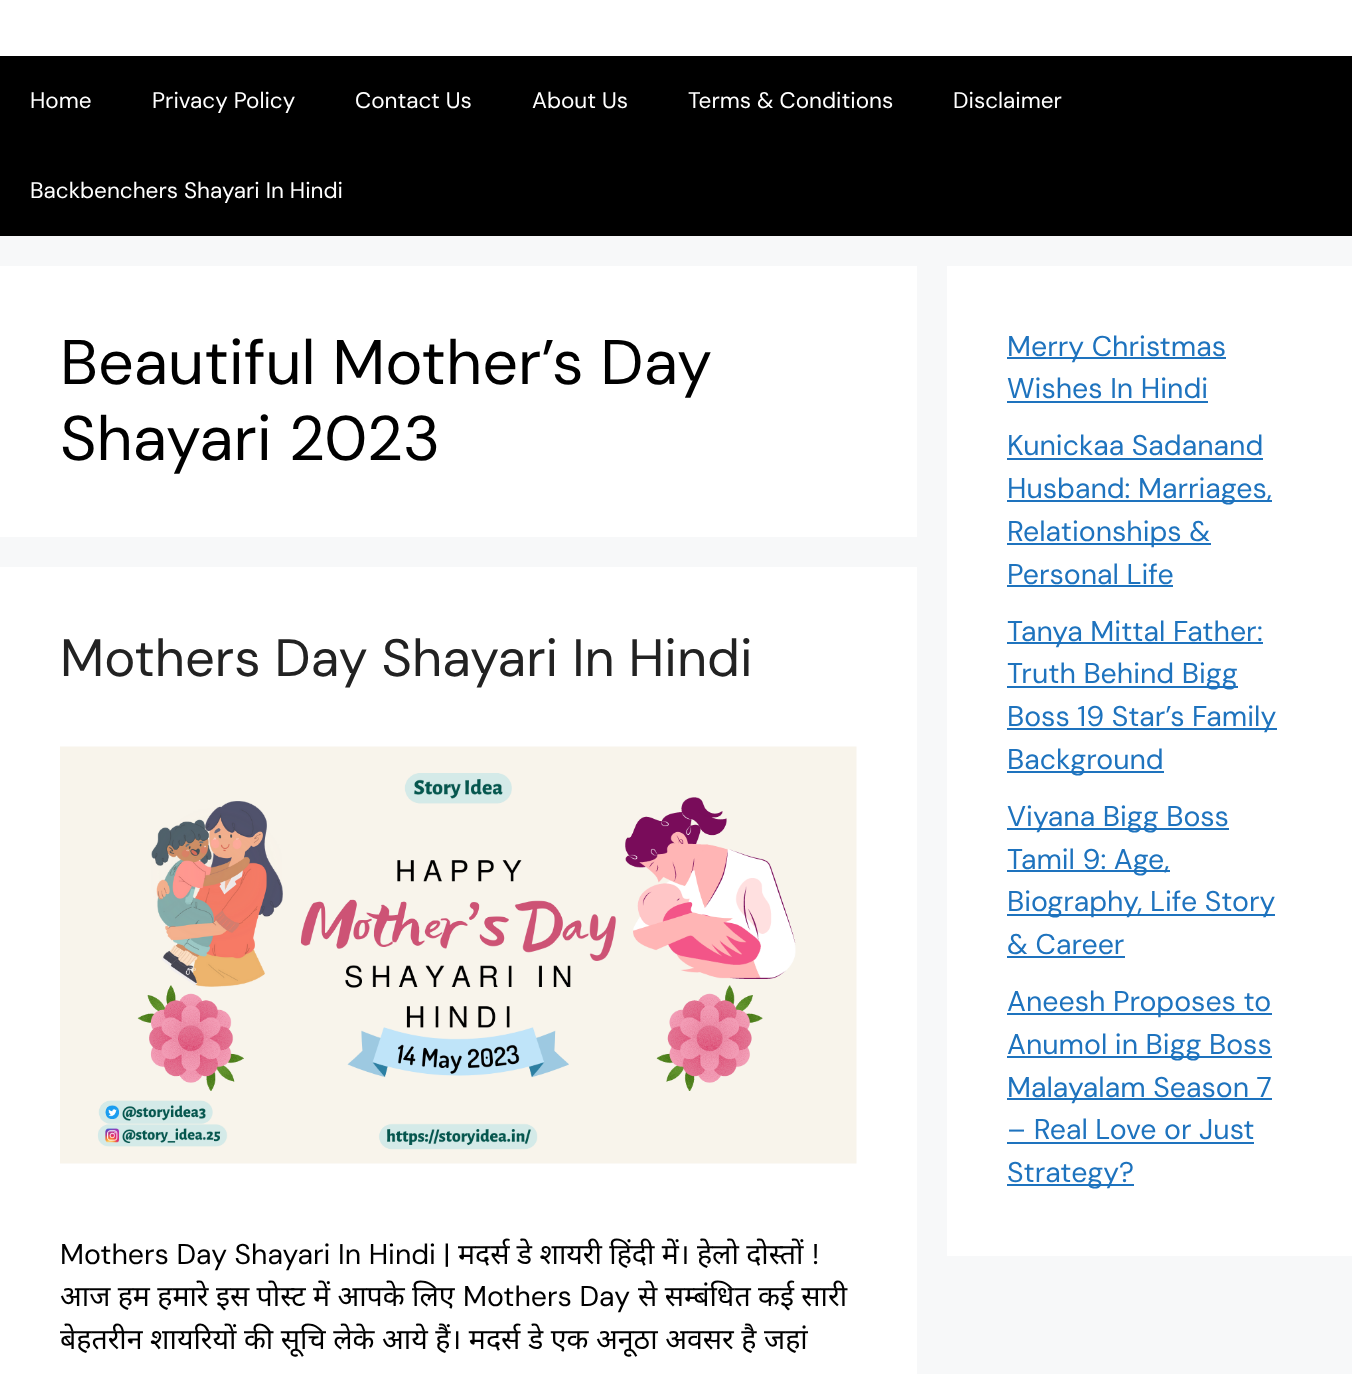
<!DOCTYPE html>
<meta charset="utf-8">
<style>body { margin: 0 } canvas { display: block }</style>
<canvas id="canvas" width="1352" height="1374"></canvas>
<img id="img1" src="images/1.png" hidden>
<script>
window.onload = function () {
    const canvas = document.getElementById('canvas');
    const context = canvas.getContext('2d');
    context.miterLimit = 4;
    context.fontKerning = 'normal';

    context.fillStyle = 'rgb(247, 248, 249)';
    context.fillRect(0, 0, 1352, 1374);
    context.fillStyle = 'rgb(255, 255, 255)';
    context.fillRect(0, 0, 1352, 56);
    context.fillStyle = 'rgb(0, 0, 0)';
    context.fillRect(0, 56, 1352, 180);
    context.fillStyle = 'rgb(255, 255, 255)';
    context.fillRect(0, 266, 917, 271);
    context.fillRect(0, 567, 917, 807);
    context.drawImage(document.getElementById('img1'), 60, 746, 797, 418);
    context.fillRect(947, 266, 405, 990);
    context.fillStyle = 'rgb(30, 115, 190)';
    context.fillRect(1007, 357, 219, 2);
    context.fillRect(1007, 401, 201, 2);
    context.fillRect(1007, 458, 256, 2);
    context.fillRect(1007, 500, 265, 2);
    context.fillRect(1007, 543, 204, 2);
    context.fillRect(1007, 585, 166, 2);
    context.fillRect(1007, 642, 256, 2);
    context.fillRect(1007, 686, 231, 2);
    context.fillRect(1007, 728, 270, 2);
    context.fillRect(1007, 771, 157, 2);
    context.fillRect(1007, 828, 222, 2);
    context.fillRect(1007, 870, 163, 2);
    context.fillRect(1007, 914, 268, 2);
    context.fillRect(1007, 956, 118, 2);
    context.fillRect(1007, 1013, 265, 2);
    context.fillRect(1007, 1056, 265, 2);
    context.fillRect(1007, 1098, 265, 2);
    context.fillRect(1007, 1142, 247, 2);
    context.fillRect(1007, 1184, 127, 2);
    context.font = '22.5px DM Sans';
    context.fillStyle = 'rgb(255, 255, 255)';
    context.fillText('Home', 30, 108);
    context.fillText('Privacy Policy', 152, 108);
    context.fillText('Contact Us', 355, 108);
    context.fillText('About Us', 532, 108);
    context.fillText('Terms & Conditions', 688, 108);
    context.fillText('Disclaimer', 953, 108);
    context.fillText('Backbenchers Shayari In Hindi', 30, 198);
    context.font = '63px DM Sans';
    context.fillStyle = 'rgb(0, 0, 0)';
    context.fillText('Beautiful Mother’s Day', 60, 384);
    context.fillText('Shayari 2023', 60, 460);
    context.font = '52.5px DM Sans';
    context.fillStyle = 'rgb(34, 34, 34)';
    context.fillText('Mothers Day Shayari In Hindi', 60, 676);
    context.font = '28.5px DM Sans';
    context.fillStyle = 'rgb(0, 0, 0)';
    context.fillText('Mothers Day Shayari In Hindi |', 60, 1264);
    context.font = '28.5px Noto Sans';
    context.fillText('मदर्स डे शायरी हिंदी में। हेलो दोस्तों', 458, 1264);
    context.font = '28.5px DM Sans';
    context.fillText('!', 812, 1264);
    context.font = '28.5px Noto Sans';
    context.fillText('आज हम हमारे इस पोस्ट में आपके लिए', 60, 1306);
    context.font = '28.5px DM Sans';
    context.fillText('Mothers Day', 463, 1306);
    context.font = '28.5px Noto Sans';
    context.fillText('से सम्बंधित कई सारी', 638, 1306);
    context.wordSpacing = '0.2px';
    context.fillText('बेहतरीन शायरियों की सूचि लेके आये हैं। मदर्स डे एक अनूठा अवसर है जहां', 60, 1349);
    context.wordSpacing = '0px';
    context.font = '28.5px DM Sans';
    context.fillStyle = 'rgb(30, 115, 190)';
    context.fillText('Merry Christmas', 1007, 356);
    context.fillText('Wishes In Hindi', 1007, 398);
    context.fillText('Kunickaa Sadanand', 1007, 455);
    context.fillText('Husband: Marriages,', 1007, 498);
    context.fillText('Relationships &', 1007, 541);
    context.fillText('Personal Life', 1007, 584);
    context.fillText('Tanya Mittal Father:', 1007, 641);
    context.fillText('Truth Behind Bigg', 1007, 683);
    context.fillText('Boss 19 Star’s Family', 1007, 726);
    context.fillText('Background', 1007, 769);
    context.fillText('Viyana Bigg Boss', 1007, 826);
    context.fillText('Tamil 9: Age,', 1007, 869);
    context.fillText('Biography, Life Story', 1007, 911);
    context.fillText('& Career', 1007, 954);
    context.fillText('Aneesh Proposes to', 1007, 1011);
    context.fillText('Anumol in Bigg Boss', 1007, 1054);
    context.fillText('Malayalam Season 7', 1007, 1097);
    context.fillText('– Real Love or Just', 1007, 1139);
    context.fillText('Strategy?', 1007, 1182);
};
</script>
